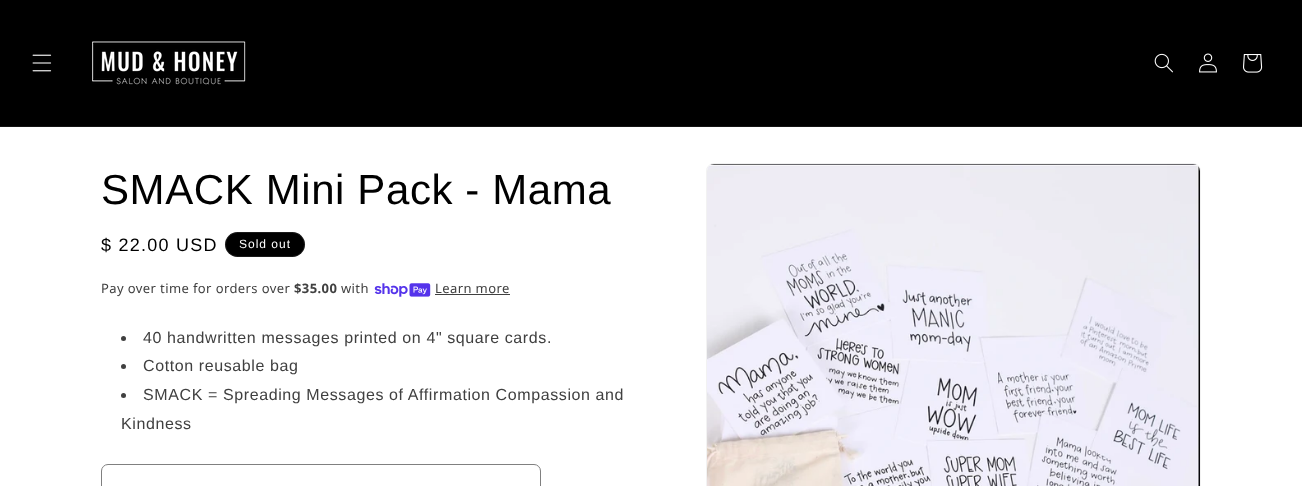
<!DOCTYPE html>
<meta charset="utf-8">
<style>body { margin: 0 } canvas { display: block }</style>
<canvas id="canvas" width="1302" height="486"></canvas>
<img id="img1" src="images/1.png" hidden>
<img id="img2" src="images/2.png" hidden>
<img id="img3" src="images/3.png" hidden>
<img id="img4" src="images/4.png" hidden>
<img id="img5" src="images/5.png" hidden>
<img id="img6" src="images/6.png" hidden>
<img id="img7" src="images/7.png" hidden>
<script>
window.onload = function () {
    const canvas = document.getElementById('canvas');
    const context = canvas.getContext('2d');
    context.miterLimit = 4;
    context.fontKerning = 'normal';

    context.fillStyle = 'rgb(255, 255, 255)';
    context.fillRect(0, 0, 1302, 486);
    context.fillStyle = 'rgb(0, 0, 0)';
    context.fillRect(0, 0, 1302, 126);
    context.fillStyle = 'rgb(20, 20, 20)';
    context.fillRect(0, 126, 1302, 1);
    context.drawImage(document.getElementById('img1'), 32, 54, 20, 18);
    context.drawImage(document.getElementById('img2'), 92, 41, 154, 44);
    context.drawImage(document.getElementById('img3'), 1154, 53, 19, 20);
    context.drawImage(document.getElementById('img4'), 1199, 53, 18, 20);
    context.drawImage(document.getElementById('img5'), 1243, 54, 20, 19);
    context.fillStyle = 'rgb(0, 0, 0)';
    context.beginPath();
    context.roundRect(225, 232, 80, 25, 12.5);
    context.fill();
    context.beginPath();
    context.roundRect(225.5, 232.5, 79, 24, 12);
    context.strokeStyle = 'rgba(255, 255, 255, 0.1)';
    context.stroke();
    context.drawImage(document.getElementById('img6'), 374, 283, 57, 14);
    context.fillStyle = 'rgb(64, 64, 64)';
    context.fillRect(435, 294, 75, 1);
    context.beginPath();
    context.arc(123.5, 338.5, 2.5, 0, 2 * Math.PI);
    context.fill();
    context.beginPath();
    context.arc(123.5, 366.5, 2.5, 0, 2 * Math.PI);
    context.fill();
    context.beginPath();
    context.arc(123.5, 395.5, 2.5, 0, 2 * Math.PI);
    context.fill();
    context.beginPath();
    context.roundRect(101.5, 464.5, 439, 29, 6.5);
    context.strokeStyle = 'rgb(128, 128, 128)';
    context.stroke();
    context.beginPath();
    context.roundRect(706.5, 163.5, 494, 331, 7.5);
    context.strokeStyle = 'rgb(242, 242, 242)';
    context.stroke();
    context.drawImage(document.getElementById('img7'), 707, 164, 493, 322);
    context.letterSpacing = '0.6px';
    context.font = '42px Arimo';
    context.fillStyle = 'rgb(0, 0, 0)';
    context.fillText('SMACK Mini Pack - Mama', 101, 204);
    context.letterSpacing = '1.25px';
    context.font = '18px Arimo';
    context.fillText('$ 22.00 USD', 101, 251);
    context.letterSpacing = '1px';
    context.font = '12px Arimo';
    context.fillStyle = 'rgb(255, 255, 255)';
    context.fillText('Sold out', 239, 248);
    context.letterSpacing = '0.4px';
    context.font = '13px Noto Sans';
    context.fillStyle = 'rgb(64, 64, 64)';
    context.fillText('Pay over time for orders over', 101, 293);
    context.font = 'bold 13px Noto Sans';
    context.fillText('$35.00', 294, 293);
    context.font = '13px Noto Sans';
    context.fillText('with', 341, 293);
    context.fillText('Learn more', 435, 293);
    context.letterSpacing = '0.6px';
    context.font = '16px Arimo';
    context.fillText('40 handwritten messages printed on 4" square cards.', 143, 343);
    context.fillText('Cotton reusable bag', 143, 371);
    context.fillText('SMACK = Spreading Messages of Affirmation Compassion and', 143, 400);
    context.fillText('Kindness', 121, 429);
};
</script>
